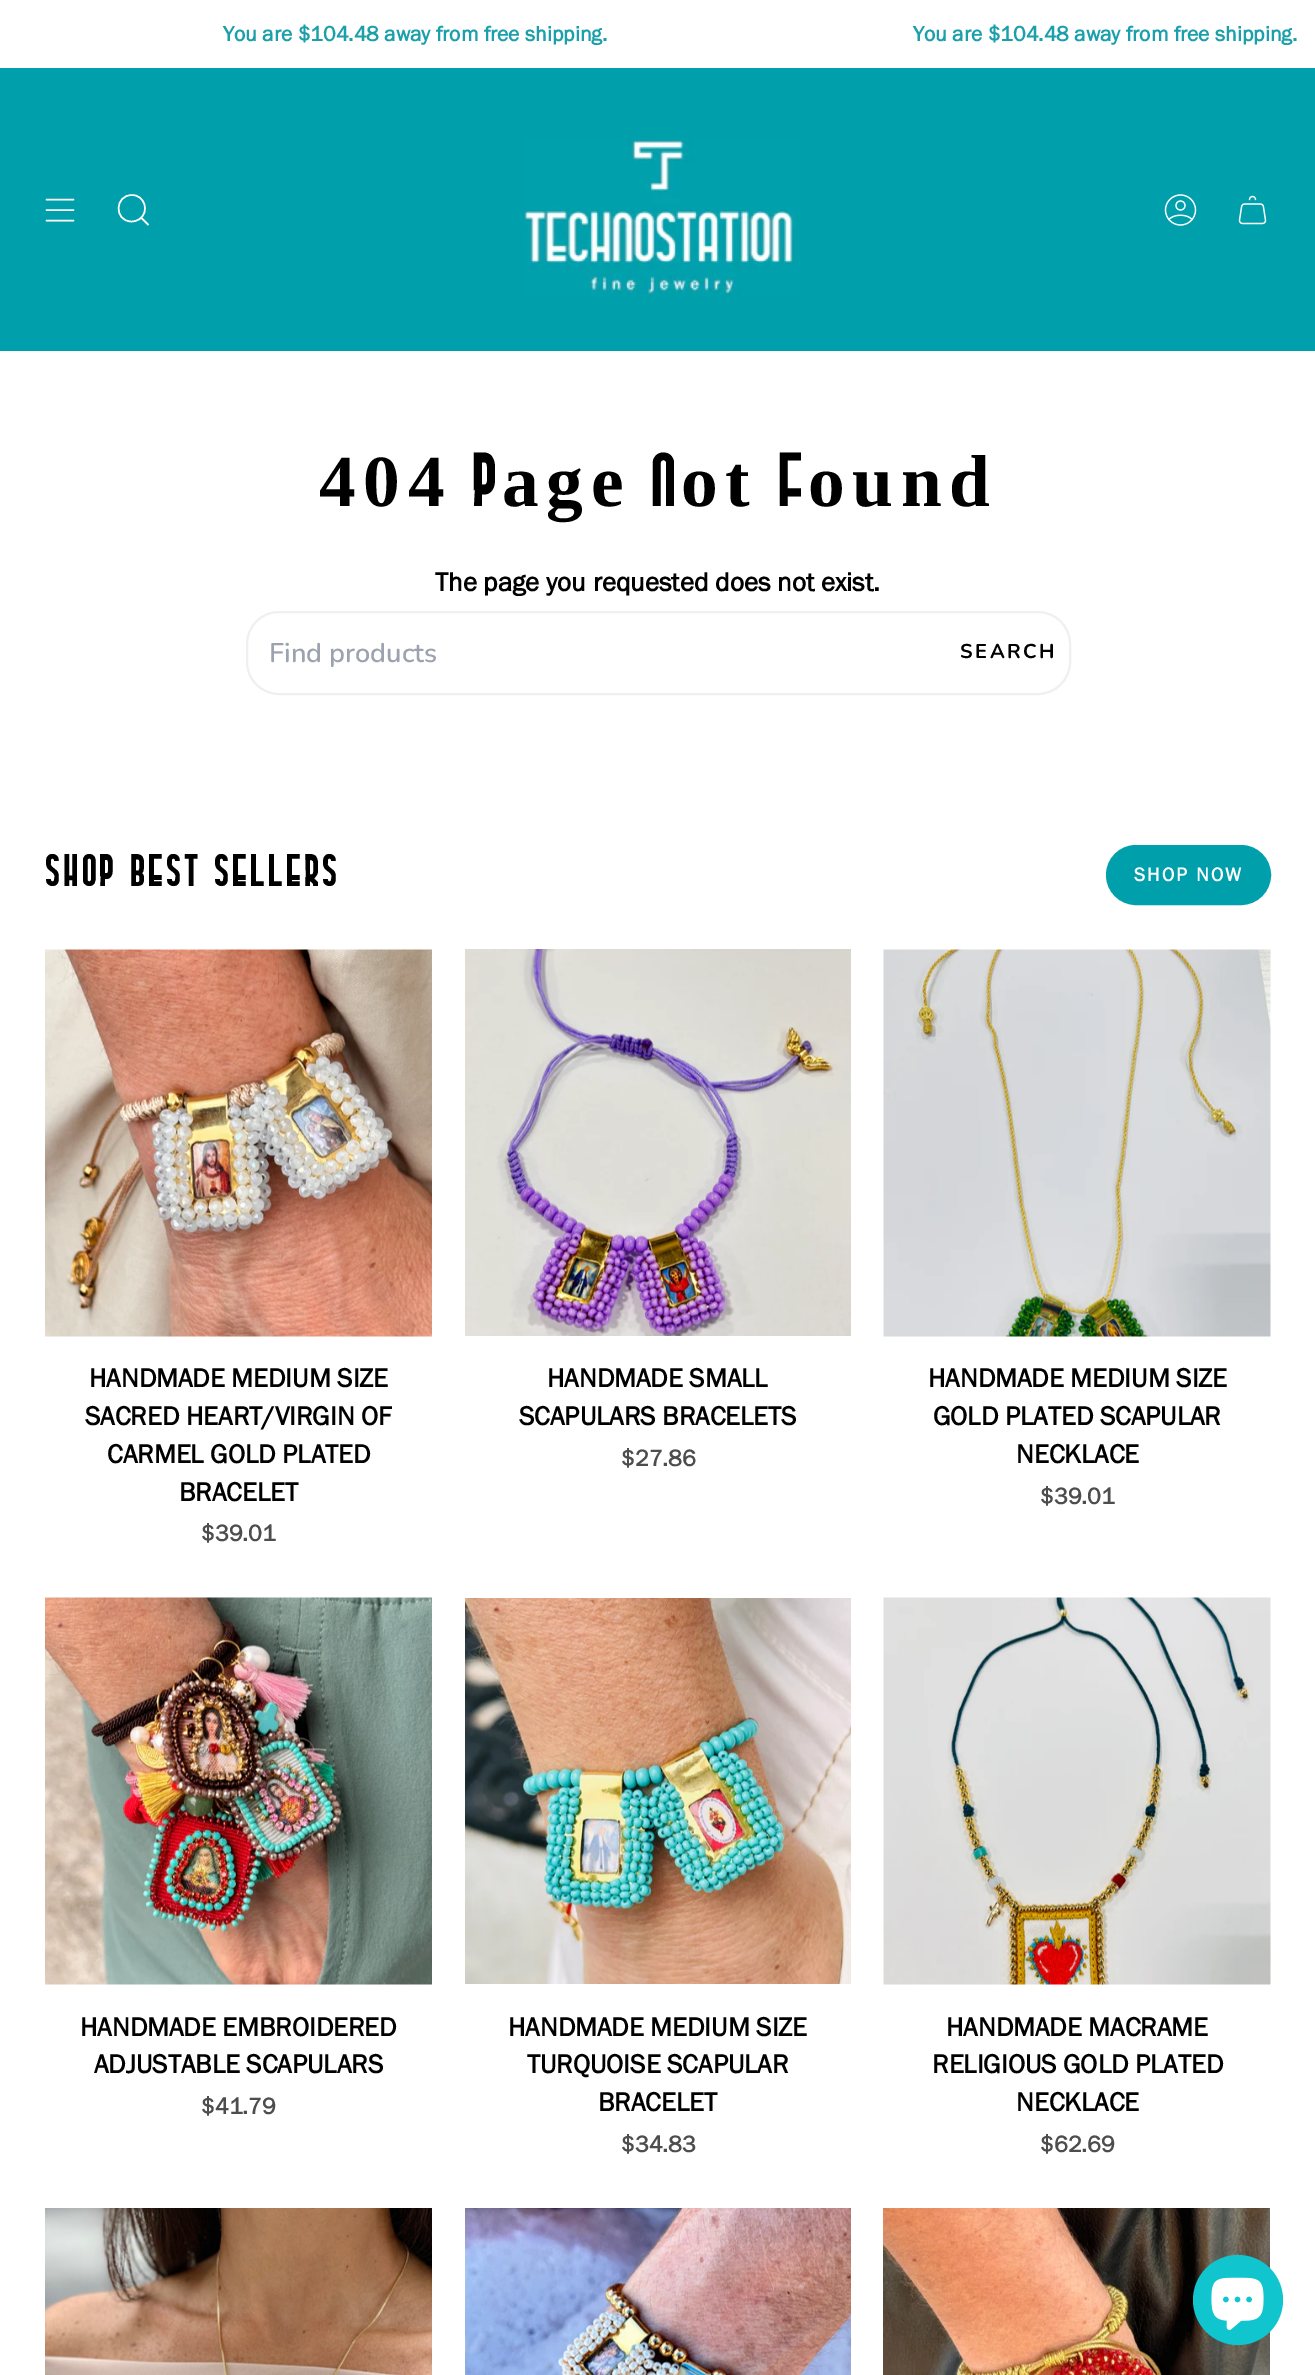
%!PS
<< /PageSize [1315 2375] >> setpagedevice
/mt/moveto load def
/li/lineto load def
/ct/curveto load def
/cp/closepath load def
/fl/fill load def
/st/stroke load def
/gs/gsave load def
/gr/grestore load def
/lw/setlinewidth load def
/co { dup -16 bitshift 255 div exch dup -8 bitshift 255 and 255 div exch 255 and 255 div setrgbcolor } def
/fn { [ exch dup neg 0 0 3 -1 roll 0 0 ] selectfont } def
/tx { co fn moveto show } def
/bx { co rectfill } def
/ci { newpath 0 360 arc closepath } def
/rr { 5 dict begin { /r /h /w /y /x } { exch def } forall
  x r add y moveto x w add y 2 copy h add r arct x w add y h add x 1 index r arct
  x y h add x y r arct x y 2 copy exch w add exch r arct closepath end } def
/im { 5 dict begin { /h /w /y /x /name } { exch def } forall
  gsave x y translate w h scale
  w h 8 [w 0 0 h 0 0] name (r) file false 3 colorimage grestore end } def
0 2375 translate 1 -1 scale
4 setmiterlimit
0 0 1315 2375 16#FFFFFF bx
0 68 1315 283 16#009FAC bx
16#FFFFFF co
1.5 lw
1 setlinecap
1 setlinejoin
46.5 199.5 mt 73.5 199.5 li 46.5 210 mt 73.5 210 li 46.5 220.5 mt 73.5 220.5 li st
0 setlinecap
0 setlinejoin
132 195 mt 144.5 195 150 211.5 139.5 219 ct 137 221 134 221.5 131 221.5 ct 114 221 114.5 195 132 195 ct cp 141 217.5 mt 148.5 225 li st
(media/1.raw) 523 138 276 159 im
(media/2.raw) 1164 194 33 32 im
(media/3.raw) 1238 195 29 30 im
16#F0F0F0 co
2 lw
247 612 823 82 32 rr st
16#009FAC co
1107 846 163 58 29 rr gs fl gr
16#00A0AC co
st
(media/4.raw) 45 949 387 388 im
(media/5.raw) 465 949 386 387 im
(media/6.raw) 883 949 388 388 im
(media/7.raw) 45 1597 387 388 im
(media/8.raw) 465 1598 386 386 im
(media/9.raw) 883 1597 388 388 im
(media/10.raw) 45 2208 387 167 im
(media/11.raw) 465 2208 386 167 im
(media/12.raw) 883 2208 387 167 im
16#10C5CE co
1238 2300 45 ci fl
(media/13.raw) 1211 2277 53 53 im
(You are $104.48 away from free shipping.) 223 41 /FranklinGothic-Bold 21.6 16#1B9FAB tx
(You are $104.48 away from free shipping.) 913 41 /FranklinGothic-Bold 21.6 16#1B9FAB tx
/LiberationSerif-Bold 73.5 fn
16#000000 co
319 506 mt 7.5 0 (404) ashow
/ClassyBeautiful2-Bold 73.5 fn
472 506 mt 7.5 0 (P) ashow
/LiberationSerif-Bold 73.5 fn
502 506 mt 7.5 0 (age) ashow
/ClassyBeautiful2-Bold 73.5 fn
651 506 mt 7.5 0 (N) ashow
/LiberationSerif-Bold 73.5 fn
681 506 mt 7.5 0 (ot) ashow
/ClassyBeautiful2-Bold 73.5 fn
778 506 mt 7.5 0 (F) ashow
/LiberationSerif-Bold 73.5 fn
808 506 mt 7.5 0 (ound) ashow
(The page you requested does not exist.) 435 591 /FranklinGothic-Bold 27 16#000000 tx
(Find products) 269 662 /Nunito-SemiBold 27 16#9CA3AF tx
/Nunito-Bold 20 fn
16#000000 co
960 658 mt 2.5 0 (SEARCH) ashow
/ClassyBeautiful2-Bold 44 fn
45 886 mt 4.4 0 (SHOP BEST SELLERS) ashow
/FranklinGothic-Bold 19.5 fn
16#FFFFFF co
1134 881 mt 2 0 (SHOP NOW) ashow
(HANDMADE MEDIUM SIZE) 89 1387 /FranklinGothic-Bold 27 16#000000 tx
(SACRED HEART/VIRGIN OF) 85 1425 /FranklinGothic-Bold 27 16#000000 tx
(CARMEL GOLD PLATED) 107 1463 /FranklinGothic-Bold 27 16#000000 tx
(BRACELET) 179 1501 /FranklinGothic-Bold 27 16#000000 tx
($39.01) 201 1541 /FranklinGothic-Bold 23.5 16#4D4D4D tx
(HANDMADE SMALL) 547 1387 /FranklinGothic-Bold 27 16#000000 tx
(SCAPULARS BRACELETS) 519 1425 /FranklinGothic-Bold 27 16#000000 tx
($27.86) 621 1466 /FranklinGothic-Bold 23.5 16#4D4D4D tx
(HANDMADE MEDIUM SIZE) 928 1387 /FranklinGothic-Bold 27 16#000000 tx
(GOLD PLATED SCAPULAR) 933 1425 /FranklinGothic-Bold 27 16#000000 tx
(NECKLACE) 1016 1463 /FranklinGothic-Bold 27 16#000000 tx
($39.01) 1040 1504 /FranklinGothic-Bold 23.5 16#4D4D4D tx
(HANDMADE EMBROIDERED) 80 2036 /FranklinGothic-Bold 27 16#000000 tx
(ADJUSTABLE SCAPULARS) 94 2073 /FranklinGothic-Bold 27 16#000000 tx
($41.79) 201 2114 /FranklinGothic-Bold 23.5 16#4D4D4D tx
(HANDMADE MEDIUM SIZE) 508 2036 /FranklinGothic-Bold 27 16#000000 tx
(TURQUOISE SCAPULAR) 527 2073 /FranklinGothic-Bold 27 16#000000 tx
(BRACELET) 598 2111 /FranklinGothic-Bold 27 16#000000 tx
($34.83) 621 2152 /FranklinGothic-Bold 23.5 16#4D4D4D tx
(HANDMADE MACRAME) 946 2036 /FranklinGothic-Bold 27 16#000000 tx
(RELIGIOUS GOLD PLATED) 932 2073 /FranklinGothic-Bold 27 16#000000 tx
(NECKLACE) 1016 2111 /FranklinGothic-Bold 27 16#000000 tx
($62.69) 1040 2152 /FranklinGothic-Bold 23.5 16#4D4D4D tx
showpage
